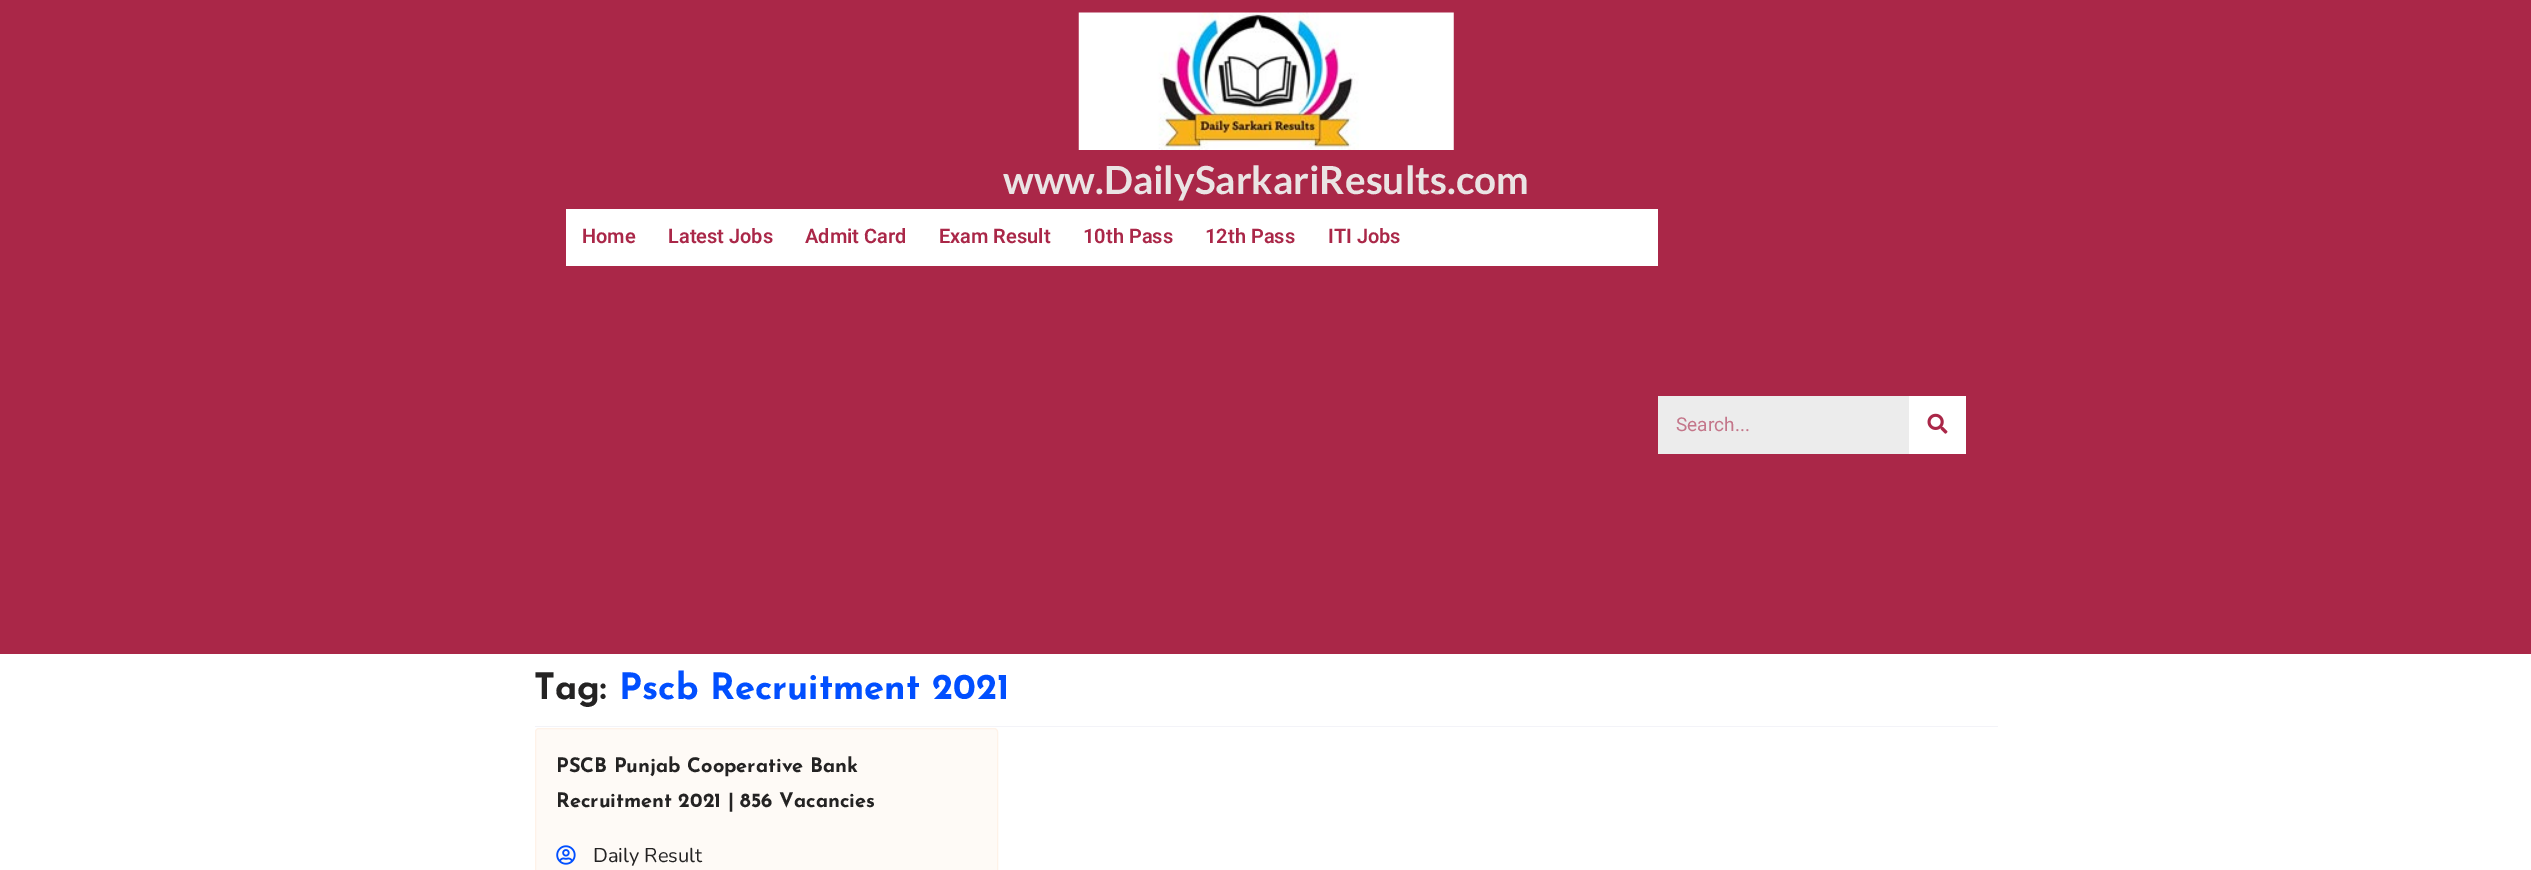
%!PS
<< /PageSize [2531 870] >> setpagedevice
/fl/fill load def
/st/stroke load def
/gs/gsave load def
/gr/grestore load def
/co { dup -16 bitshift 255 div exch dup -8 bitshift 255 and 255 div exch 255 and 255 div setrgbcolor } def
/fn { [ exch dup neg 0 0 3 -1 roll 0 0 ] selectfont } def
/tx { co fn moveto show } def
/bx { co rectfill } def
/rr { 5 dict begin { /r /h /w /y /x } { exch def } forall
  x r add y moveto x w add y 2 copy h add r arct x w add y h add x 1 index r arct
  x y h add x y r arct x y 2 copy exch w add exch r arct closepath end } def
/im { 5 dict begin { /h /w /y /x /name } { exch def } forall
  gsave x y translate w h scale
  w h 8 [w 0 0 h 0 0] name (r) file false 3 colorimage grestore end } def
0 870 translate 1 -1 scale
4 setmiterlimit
0 0 2531 870 16#FFFFFF bx
0 0 2531 654 16#AA2748 bx
(media/1.raw) 1078 12 376 138 im
566 209 1092 57 16#FFFFFF bx
1658 396 251 58 16#ECECEC bx
1909 396 57 58 16#FFFFFF bx
(media/2.raw) 1927 413 21 21 im
535 726 1463 1 16#F3F3F8 bx
16#FEFAF6 co
535.5 728.5 462 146 3.5 rr gs fl gr
16#FEF2E8 co
st
(media/3.raw) 556 845 20 20 im
(www.DailySarkariResults.com) 1003 194 /Lato-Bold 38.75 16#EAE4E4 tx
(Home) 582 243 /Roboto-SemiBold 20 16#AA2748 tx
(Latest Jobs) 668 243 /Roboto-SemiBold 20 16#AA2748 tx
(Admit Card) 805 243 /Roboto-SemiBold 20 16#AA2748 tx
(Exam Result) 939 243 /Roboto-SemiBold 20 16#AA2748 tx
(10th Pass) 1083 243 /Roboto-SemiBold 20 16#AA2748 tx
(12th Pass) 1205 243 /Roboto-SemiBold 20 16#AA2748 tx
(ITI Jobs) 1328 243 /Roboto-SemiBold 20 16#AA2748 tx
(Search...) 1676 431 /Roboto-Regular 19 16#C4768A tx
(Tag:) 534 699 /JosefinSans-Bold 36.25 16#242323 tx
(Pscb Recruitment 2021) 619 699 /JosefinSans-Bold 36.25 16#014FFF tx
(PSCB Punjab Cooperative Bank) 556 772 /JosefinSans-Bold 20 16#242323 tx
(Recruitment 2021 | 856 Vacancies) 556 807 /JosefinSans-Bold 20 16#242323 tx
(Daily Result) 593 862 /Nunito-Regular 20 16#242323 tx
showpage
